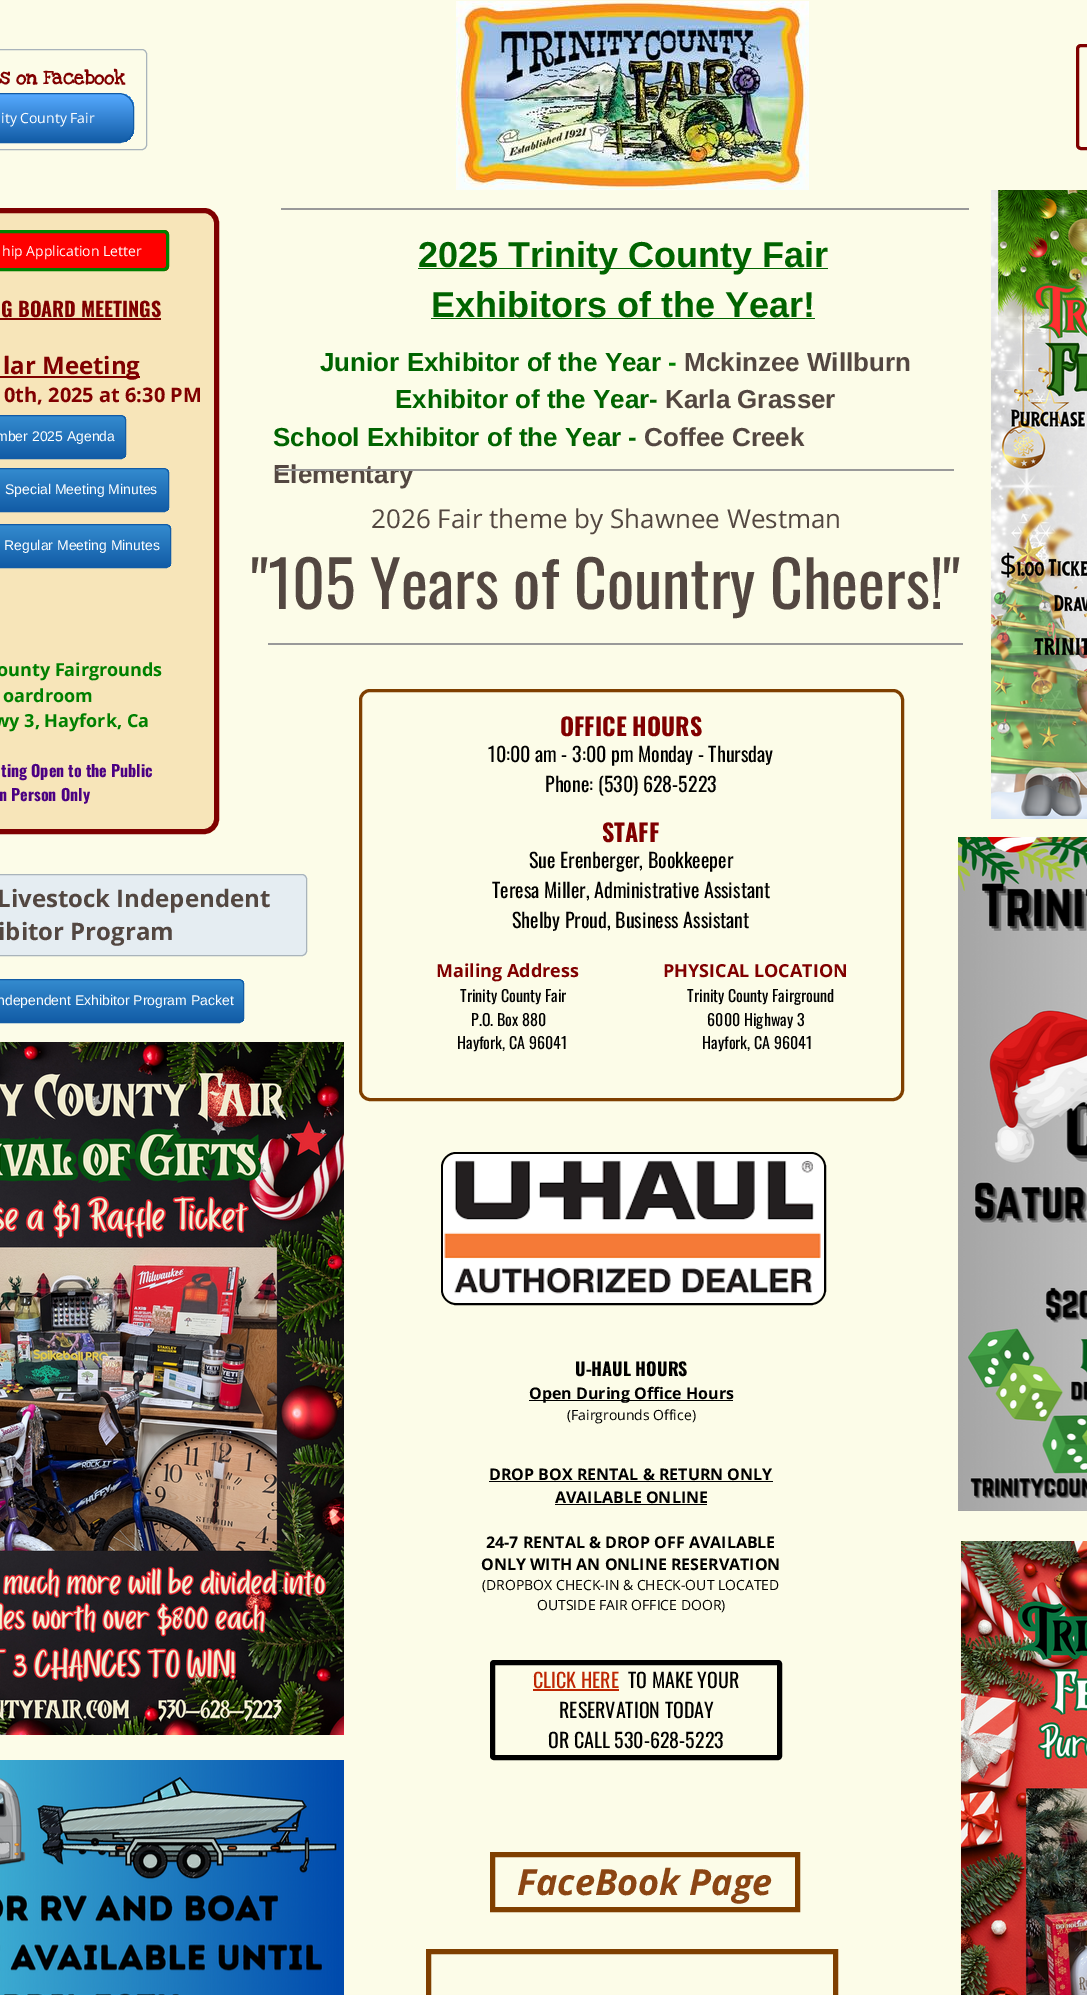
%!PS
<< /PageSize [1087 1995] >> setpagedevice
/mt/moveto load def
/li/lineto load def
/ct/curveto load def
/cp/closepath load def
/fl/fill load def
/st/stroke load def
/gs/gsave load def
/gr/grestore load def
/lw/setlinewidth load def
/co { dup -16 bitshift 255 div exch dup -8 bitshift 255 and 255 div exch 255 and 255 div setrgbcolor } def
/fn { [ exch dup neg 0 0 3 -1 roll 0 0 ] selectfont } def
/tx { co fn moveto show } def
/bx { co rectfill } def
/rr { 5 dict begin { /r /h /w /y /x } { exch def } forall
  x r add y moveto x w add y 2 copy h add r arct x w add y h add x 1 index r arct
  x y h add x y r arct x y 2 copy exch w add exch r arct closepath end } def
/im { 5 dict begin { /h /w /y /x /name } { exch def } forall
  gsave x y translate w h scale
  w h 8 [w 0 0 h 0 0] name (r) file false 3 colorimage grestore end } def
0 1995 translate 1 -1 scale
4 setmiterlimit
0 0 1087 1995 16#FCFCE8 bx
16#A9B4BB co
-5.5 49.5 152 100 4.5 rr st
(media/1.raw) 456 1 353 189 im
16#7F0000 co
3 lw
1077.5 45.5 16 103 3.5 rr st
gs
-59 93 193 50 15 rr clip newpath
gs 0 94 mt 134 94 li 134 142 li 0 142 li cp clip newpath
<< /ShadingType 2 /ColorSpace /DeviceRGB /Coords [38 94 38 142] /Extend [true true] /Function << /FunctionType 2 /Domain [0 1] /C0 [.337 .667 1] /C1 [.071 .361 .651] /N 1 >> >> shfill gr
gr
16#125CA6 co
1 lw
-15.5 93.5 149 49 14.5 rr st
16#F7E5B9 co
0 208 mt 204 208 li 212.5 208 219 214.5 219 223 ct 219 819 li 219 827.5 212.5 834 204 834 ct 0 834 li cp fl
16#7F0000 co
5 lw
-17.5 210.5 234 621 12.5 rr st
281 208 688 2 16#999999 bx
(media/2.raw) 991 190 96 629 im
16#FF0000 co
0 230 mt 164 230 li 167 230 169 232 169 235 ct 169 266 li 169 269 167 271 164 271 ct 0 271 li cp fl
16#007F00 co
3 lw
-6.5 231.5 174 38 3.5 rr st
418 268 410 1 16#006400 bx
431 318 384 1 16#006400 bx
0 318 161 2 16#800000 bx
0 376 140 2 16#800000 bx
gs
-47 415 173 44 5 rr clip newpath
gs 0 416 mt 126 416 li 126 458 li 0 458 li cp clip newpath
<< /ShadingType 2 /ColorSpace /DeviceRGB /Coords [40 416 40 458] /Extend [true true] /Function << /FunctionType 2 /Domain [0 1] /C0 [.204 .545 .812] /C1 [.071 .361 .651] /N 1 >> >> shfill gr
gr
16#125CA6 co
1 lw
-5.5 415.5 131 43 4.5 rr st
gs
-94 468 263 44 5 rr clip newpath
gs 0 469 mt 169 469 li 169 511 li 0 511 li cp clip newpath
<< /ShadingType 2 /ColorSpace /DeviceRGB /Coords [38 469 38 511] /Extend [true true] /Function << /FunctionType 2 /Domain [0 1] /C0 [.204 .545 .812] /C1 [.071 .361 .651] /N 1 >> >> shfill gr
gr
-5.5 468.5 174 43 4.5 rr st
gs
-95 524 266 44 5 rr clip newpath
gs 0 525 mt 171 525 li 171 567 li 0 567 li cp clip newpath
<< /ShadingType 2 /ColorSpace /DeviceRGB /Coords [38 525 38 567] /Extend [true true] /Function << /FunctionType 2 /Domain [0 1] /C0 [.204 .545 .812] /C1 [.071 .361 .651] /N 1 >> >> shfill gr
gr
-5.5 524.5 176 43 4.5 rr st
268 643 695 2 16#999999 bx
16#E5EDF2 co
0 874 mt 302 874 li 305 874 307 876 307 879 ct 307 951 li 307 954 305 956 302 956 ct 0 956 li cp fl
16#A9B4BB co
-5.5 874.5 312 81 4.5 rr st
16#7F3F00 co
3 lw
360.5 690.5 542 409 9.5 rr st
(media/3.raw) 958 837 129 674 im
gs
-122 979 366 44 5 rr clip newpath
gs 0 980 mt 244 980 li 244 1022 li 0 1022 li cp clip newpath
<< /ShadingType 2 /ColorSpace /DeviceRGB /Coords [61 980 61 1022] /Extend [true true] /Function << /FunctionType 2 /Domain [0 1] /C0 [.204 .545 .812] /C1 [.071 .361 .651] /N 1 >> >> shfill gr
gr
16#125CA6 co
1 lw
-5.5 979.5 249 43 4.5 rr st
(media/4.raw) 0 1042 344 693 im
16#000000 co
2 lw
442 1153 383 151 14 rr st
(media/5.raw) 443 1154 381 149 im
529 1400 204 1 16#000000 bx
489 1481 284 1 16#000000 bx
555 1504 152 1 16#000000 bx
5 lw
492.5 1662.5 287 95 1.5 rr st
533 1689 86 2 16#BE2602 bx
(media/6.raw) 961 1541 126 454 im
(media/7.raw) 0 1760 344 235 im
16#7F3F00 co
492.5 1854.5 305 55 rectstroke
428.5 1951.5 407 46 rectstroke
(s on Facebook) -1 84 /LoveYaLikeASister-Bold 20 16#800000 tx
(ity County Fair) 1 123 /OpenSans-Regular 14 16#FFFFFF tx
(hip Application Letter) 2 256 /OpenSans-Regular 14 16#FFFFFF tx
(2025 Trinity County Fair) 418 267 /LiberationSans-Bold 36 16#006400 tx
(Exhibitors of the Year!) 431 317 /LiberationSans-Bold 36 16#006400 tx
(G BOARD MEETINGS) 1 317 /Oswald-Bold 20 16#800000 tx
(lar Meeting) 3 374 /OpenSans-Bold 24 16#800000 tx
(0th, 2025 at 6:30 PM) 4 402 /OpenSans-Bold 20 16#800000 tx
(ounty Fairgrounds) -3 676 /OpenSans-Bold 18 16#008000 tx
(oardroom) 3 702 /OpenSans-Bold 18 16#008000 tx
(wy 3, Hayfork, Ca) -6 727 /OpenSans-Bold 18 16#008000 tx
(ting Open to the Public) 1 777 /Oswald-Bold 16 16#4B0082 tx
(n Person Only) -1 801 /Oswald-Bold 16 16#4B0082 tx
(Junior Exhibitor of the Year) 320 371 /LiberationSans-Bold 26 16#006400 tx
(-) 668 371 /LiberationSans-Bold 26 16#008000 tx
(Mckinzee Willburn) 684 371 /LiberationSans-Bold 26 16#534741 tx
(Exhibitor of the Year-) 395 408 /LiberationSans-Bold 26 16#006400 tx
(Karla Grasser) 665 408 /LiberationSans-Bold 26 16#534741 tx
(School Exhibitor of the Year -) 273 446 /LiberationSans-Bold 26 16#006400 tx
(Coffee Creek) 644 446 /LiberationSans-Bold 26 16#534741 tx
(Elementary) 273 483 /LiberationSans-Bold 26 16#534741 tx
(mber 2025 Agenda) -4 441 /LiberationSans-Regular 14 16#FFFFFF tx
276 469 678 2 16#999999 bx
(Special Meeting Minutes) 5 494 /LiberationSans-Regular 14 16#FFFFFF tx
(Regular Meeting Minutes) 4 550 /LiberationSans-Regular 14 16#FFFFFF tx
(2026 Fair theme by Shawnee Westman) 371 528 /OpenSans-Regular 26 16#534741 tx
("105 Years of Country Cheers!") 251 609 /Oswald-Regular 64 16#534741 tx
(OFFICE HOURS) 560 736 /Oswald-Bold 24 16#800000 tx
(10:00 am - 3:00 pm Monday - Thursday) 488 762 /Oswald-Regular 20 16#000000 tx
(Phone: \(530\) 628-5223) 545 792 /Oswald-Regular 20 16#000000 tx
(STAFF) 602 842 /Oswald-Bold 24 16#800000 tx
(Sue Erenberger, Bookkeeper) 529 868 /Oswald-Regular 20 16#000000 tx
(Teresa Miller, Administrative Assistant) 492 898 /Oswald-Regular 20 16#000000 tx
(Shelby Proud, Business Assistant) 512 928 /Oswald-Regular 20 16#000000 tx
(Mailing Address) 436 977 /OpenSans-Bold 18 16#800000 tx
(PHYSICAL LOCATION) 663 977 /OpenSans-Bold 18 16#800000 tx
(Trinity County Fair                                 Trinity County Fairground) 460 1002 /Oswald-Regular 16 16#000000 tx
(P.O. Box 880                                            6000 Highway 3) 471 1026 /Oswald-Regular 16 16#000000 tx
(Hayfork, CA 96041                                     Hayfork, CA 96041) 457 1049 /Oswald-Regular 16 16#000000 tx
(Livestock Independent) -3 907 /OpenSans-Bold 24 16#534741 tx
(ibitor Program) -2 940 /OpenSans-Bold 24 16#534741 tx
(ndependent Exhibitor Program Packet) -3 1005 /LiberationSans-Regular 14 16#FFFFFF tx
(U-HAUL HOURS) 575 1376 /Oswald-Bold 18 16#000000 tx
(Open During Office Hours) 529 1399 /OpenSans-Bold 16 16#000000 tx
(\(Fairgrounds Office\)) 567 1420 /OpenSans-Regular 14 16#000000 tx
(DROP BOX RENTAL & RETURN ONLY) 489 1480 /OpenSans-Bold 16 16#000000 tx
(AVAILABLE ONLINE) 555 1503 /OpenSans-Bold 16 16#000000 tx
(24-7 RENTAL & DROP OFF AVAILABLE) 486 1548 /OpenSans-Bold 16 16#000000 tx
(ONLY WITH AN ONLINE RESERVATION) 481 1570 /OpenSans-Bold 16 16#000000 tx
(\(DROPBOX CHECK-IN & CHECK-OUT LOCATED) 482 1590 /OpenSans-Regular 14 16#000000 tx
(OUTSIDE FAIR OFFICE DOOR\)) 537 1610 /OpenSans-Regular 14 16#000000 tx
(CLICK HERE) 533 1688 /Oswald-Regular 20 16#BE2602 tx
(TO MAKE YOUR) 628 1688 /Oswald-Regular 20 16#000000 tx
(RESERVATION TODAY) 559 1718 /Oswald-Regular 20 16#000000 tx
(OR CALL 530-628-5223) 548 1748 /Oswald-Regular 20 16#000000 tx
(FaceBook Page) 517 1895 /OpenSans-BoldItalic 36 16#8B4513 tx
showpage
